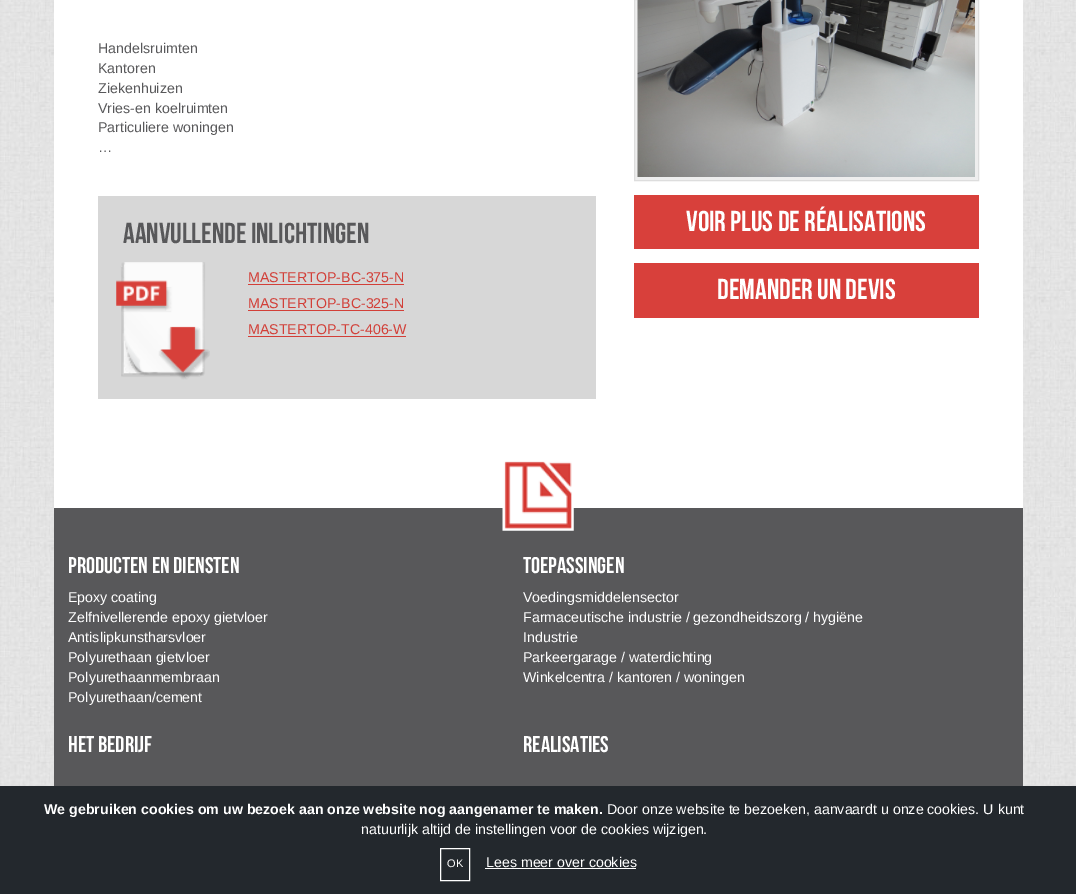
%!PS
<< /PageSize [1076 894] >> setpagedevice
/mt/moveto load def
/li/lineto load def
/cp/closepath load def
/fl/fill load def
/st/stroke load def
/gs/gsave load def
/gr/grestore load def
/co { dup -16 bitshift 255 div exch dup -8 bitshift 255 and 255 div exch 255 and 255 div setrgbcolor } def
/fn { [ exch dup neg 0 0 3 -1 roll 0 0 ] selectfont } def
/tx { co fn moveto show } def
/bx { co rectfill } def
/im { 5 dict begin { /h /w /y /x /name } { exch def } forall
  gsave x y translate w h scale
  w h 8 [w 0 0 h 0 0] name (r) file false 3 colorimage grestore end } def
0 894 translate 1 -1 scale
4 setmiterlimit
0 0 1076 894 16#FFFFFF bx
(media/1.raw) 0 0 1076 786 im
54 0 969 508 16#FFFFFF bx
98 196 498 203 16#D7D7D7 bx
(media/2.raw) 116 262 94 118 im
248 284 156 1 16#D23F38 bx
248 310 156 1 16#D23F38 bx
248 336 158 1 16#D23F38 bx
16#EEEEEE co
634.5 -.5 mt 978.5 -.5 li 978.5 180.5 li 634.5 180.5 li cp gs fl gr
16#DDDDDD co
st
(media/3.raw) 637 0 338 177 im
634 195 345 54 16#D8403B bx
634 263 345 55 16#D8403B bx
54 508 969 278 16#58585A bx
(media/4.raw) 502 461 72 70 im
0 786 1076 108 16#23282D bx
16#FFFFFF co
440.5 848.5 29 32 rectstroke
485 868 151 1 16#FFFFFF bx
(Handelsruimten) 98 53 /LiberationSans-Regular 14.2 16#58585A tx
(Kantoren) 98 73 /LiberationSans-Regular 14.2 16#58585A tx
(Ziekenhuizen) 98 93 /LiberationSans-Regular 14.2 16#58585A tx
(Vries-en koelruimten) 98 113 /LiberationSans-Regular 14.2 16#58585A tx
(Particuliere woningen) 98 132 /LiberationSans-Regular 14.2 16#58585A tx
(…) 98 152 /LiberationSans-Regular 14.2 16#58585A tx
(Aanvullende inlichtingen) 123 243 /BebasNeue-Regular 28.75 16#58585A tx
(MASTERTOP-BC-375-N) 248 282 /LiberationSans-Regular 14.2 16#D23F38 tx
(MASTERTOP-BC-325-N) 248 308 /LiberationSans-Regular 14.2 16#D23F38 tx
(MASTERTOP-TC-406-W) 248 334 /LiberationSans-Regular 14.2 16#D23F38 tx
(VOIR PLUS DE RÉALISATIONS) 686 231 /BebasNeue-Regular 28.75 16#FFFFFF tx
(DEMANDER UN DEVIS) 717 299 /BebasNeue-Regular 28.75 16#FFFFFF tx
(Producten en diensten) 68 573 /BebasNeue-Regular 22.75 16#FFFFFF tx
(Epoxy coating) 68 602 /LiberationSans-Regular 14.2 16#FFFFFF tx
(Zelfnivellerende epoxy gietvloer) 68 622 /LiberationSans-Regular 14.2 16#FFFFFF tx
(Antislipkunstharsvloer) 68 642 /LiberationSans-Regular 14.2 16#FFFFFF tx
(Polyurethaan gietvloer) 68 662 /LiberationSans-Regular 14.2 16#FFFFFF tx
(Polyurethaanmembraan) 68 682 /LiberationSans-Regular 14.2 16#FFFFFF tx
(Polyurethaan/cement) 68 702 /LiberationSans-Regular 14.2 16#FFFFFF tx
(Toepassingen) 523 573 /BebasNeue-Regular 22.75 16#FFFFFF tx
(Voedingsmiddelensector) 523 602 /LiberationSans-Regular 14.2 16#FFFFFF tx
(Farmaceutische industrie / gezondheidszorg / hygiëne) 523 622 /LiberationSans-Regular 14.2 16#FFFFFF tx
(Industrie) 523 642 /LiberationSans-Regular 14.2 16#FFFFFF tx
(Parkeergarage / waterdichting) 523 662 /LiberationSans-Regular 14.2 16#FFFFFF tx
(Winkelcentra / kantoren / woningen) 523 682 /LiberationSans-Regular 14.2 16#FFFFFF tx
(Het bedrijf) 68 752 /BebasNeue-Regular 22.75 16#FFFFFF tx
(Realisaties) 523 752 /BebasNeue-Regular 22.75 16#FFFFFF tx
(We gebruiken cookies om uw bezoek aan onze website nog aangenamer te maken.) 44 814 /LiberationSans-Bold 14.2 16#FFFFFF tx
(Door onze website te bezoeken, aanvaardt u onze cookies. U kunt) 607 814 /LiberationSans-Regular 14.2 16#FFFFFF tx
(natuurlijk altijd de instellingen voor de cookies wijzigen.) 361 834 /LiberationSans-Regular 14.2 16#FFFFFF tx
(OK) 447 867 /LiberationSans-Regular 11 16#FFFFFF tx
(Lees meer over cookies) 486 867 /LiberationSans-Regular 14.2 16#FFFFFF tx
showpage
